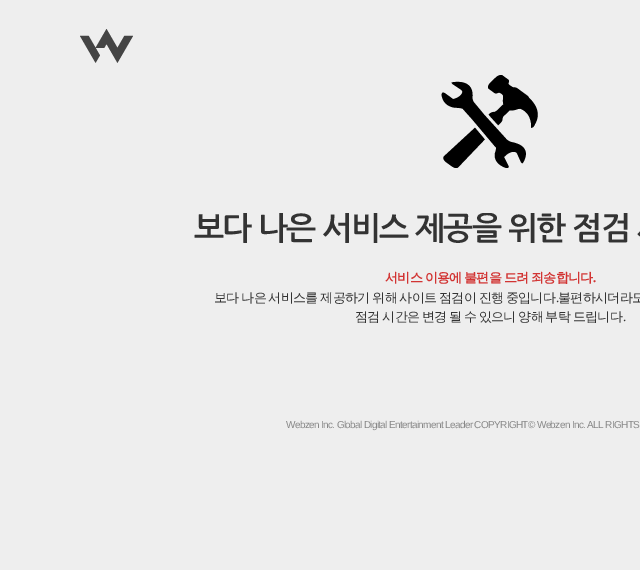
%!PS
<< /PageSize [640 570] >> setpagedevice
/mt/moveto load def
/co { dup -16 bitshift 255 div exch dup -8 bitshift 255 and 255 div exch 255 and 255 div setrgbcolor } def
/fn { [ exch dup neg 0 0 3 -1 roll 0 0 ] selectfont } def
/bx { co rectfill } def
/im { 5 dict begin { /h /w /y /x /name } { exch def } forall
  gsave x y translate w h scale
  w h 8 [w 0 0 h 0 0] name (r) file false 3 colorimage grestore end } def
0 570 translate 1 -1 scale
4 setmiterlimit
0 0 640 570 16#EEEEEE bx
(media/1.raw) 80 29 53 34 im
(media/2.raw) 441 75 97 93 im
(media/3.raw) 194 213 446 30 im
/WenQuanYiZenHei-Bold 13 fn
16#D23433 co
385 282 mt -.75 0 32 -.65 0 (서비스 이용에 불편을 드려 죄송합니다) awidthshow
/LiberationSerif-Bold 13 fn
593 282 mt -.65 0 (.) ashow
/WenQuanYiZenHei-Medium 13 fn
16#333333 co
214 302 mt -.75 0 32 -.65 0 (보다 나은 서비스를 제공하기 위해 사이트 점검이 진행 중입니다) awidthshow
/LiberationSerif-Regular 13 fn
556 302 mt -.65 0 (.) ashow
/WenQuanYiZenHei-Medium 13 fn
558 302 mt -.75 0 32 -.65 0 (불편하시더라도) awidthshow
355 321 mt -.75 0 32 -.65 0 (점검 시간은 변경 될 수 있으니 양해 부탁 드립니다) awidthshow
/LiberationSerif-Regular 13 fn
623 321 mt -.65 0 (.) ashow
/LiberationSans-Regular 10 fn
16#888888 co
286 428 mt -.65 0 (Webzen Inc. Global Digital Entertainment Leader COPYRIGHT© Webzen Inc. ALL RIGHTS) ashow
showpage
